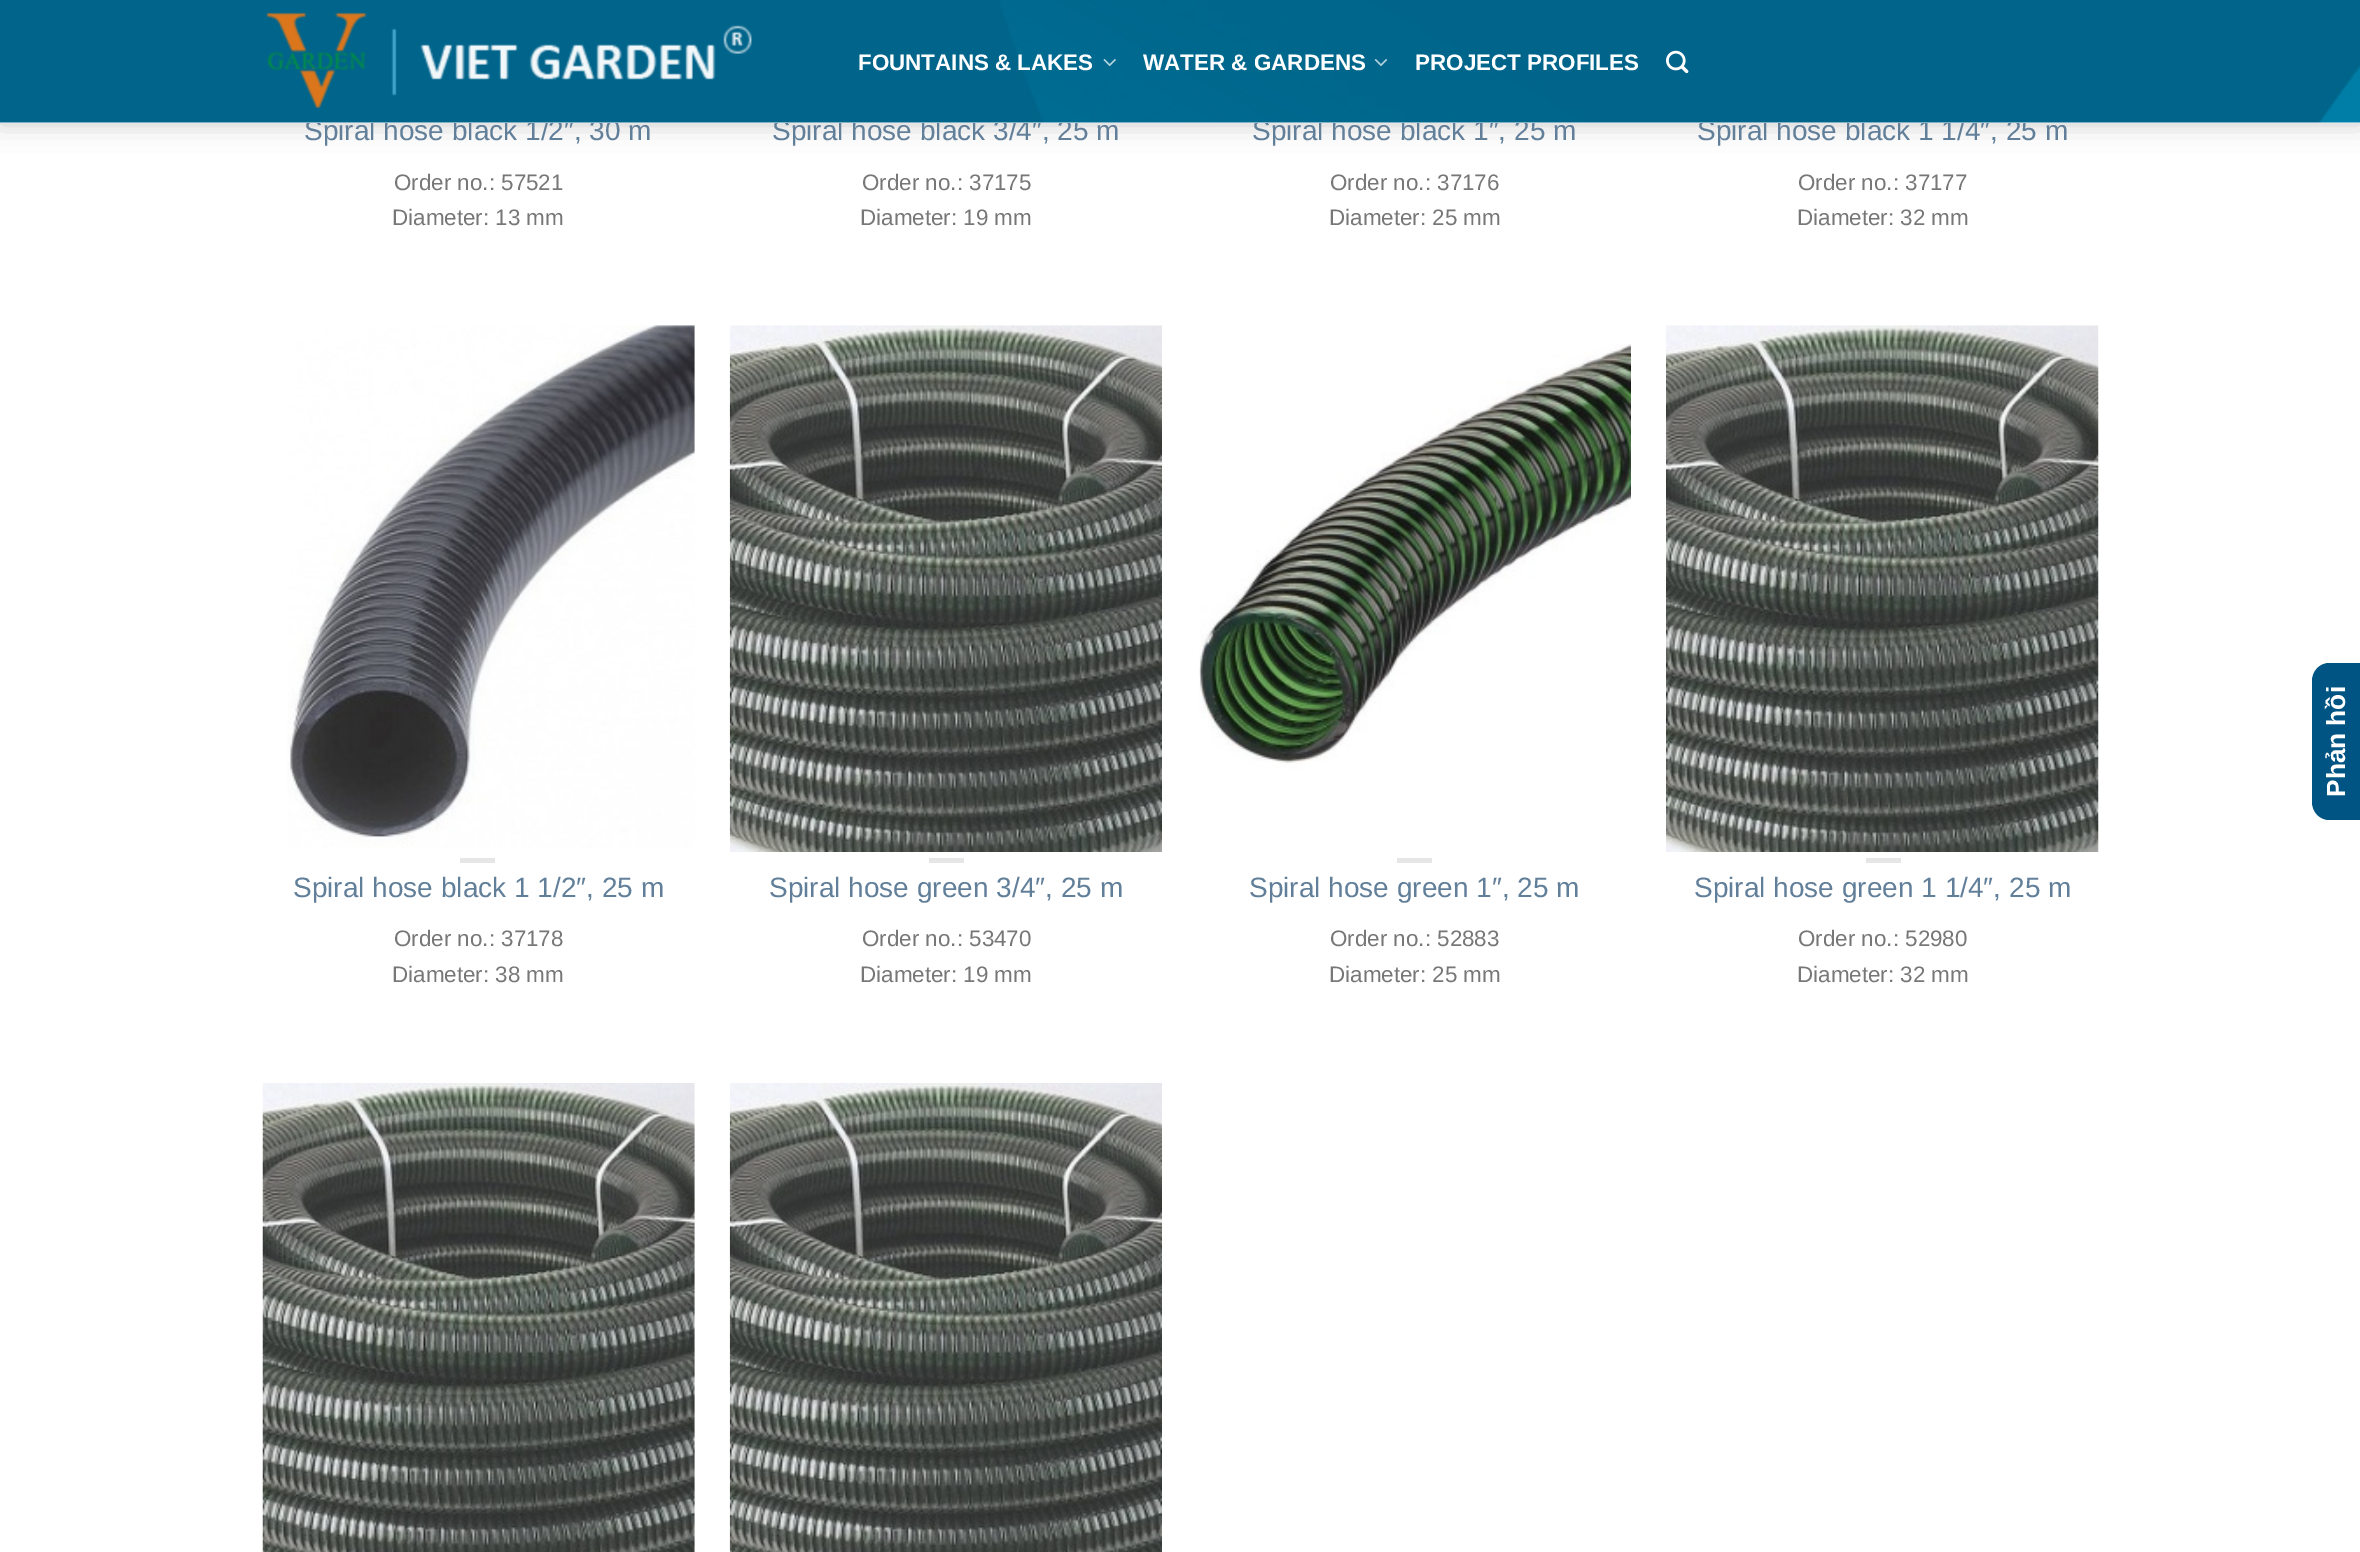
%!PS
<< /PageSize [2360 1552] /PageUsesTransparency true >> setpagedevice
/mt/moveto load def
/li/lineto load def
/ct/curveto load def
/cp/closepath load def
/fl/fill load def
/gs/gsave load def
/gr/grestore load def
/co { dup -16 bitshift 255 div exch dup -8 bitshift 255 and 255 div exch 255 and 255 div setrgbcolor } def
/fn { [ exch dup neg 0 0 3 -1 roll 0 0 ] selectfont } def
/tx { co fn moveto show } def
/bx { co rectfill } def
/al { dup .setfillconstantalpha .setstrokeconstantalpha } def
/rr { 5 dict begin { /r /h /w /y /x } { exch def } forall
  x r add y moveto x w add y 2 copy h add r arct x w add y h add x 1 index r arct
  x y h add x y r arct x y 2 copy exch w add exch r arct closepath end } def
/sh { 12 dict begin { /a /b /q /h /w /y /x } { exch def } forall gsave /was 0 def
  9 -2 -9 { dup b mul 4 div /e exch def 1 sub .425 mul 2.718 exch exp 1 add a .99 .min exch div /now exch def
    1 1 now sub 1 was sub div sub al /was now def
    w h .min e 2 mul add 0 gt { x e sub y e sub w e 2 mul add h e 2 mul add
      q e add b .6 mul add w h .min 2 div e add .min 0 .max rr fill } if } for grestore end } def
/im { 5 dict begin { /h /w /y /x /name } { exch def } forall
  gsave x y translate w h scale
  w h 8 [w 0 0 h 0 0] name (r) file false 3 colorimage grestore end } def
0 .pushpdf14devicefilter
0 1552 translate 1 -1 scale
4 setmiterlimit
0 0 2360 1552 16#FFFFFF bx
16#000000 co
0 2 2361 122 0 13 .2 sh
(media/6.raw) 287 325 408 523 im
460 858 35 5 16#E6E6E6 bx
(media/7.raw) 729 325 433 527 im
929 858 35 5 16#E6E6E6 bx
(media/8.raw) 1199 344 432 425 im
1397 858 35 5 16#E6E6E6 bx
(media/9.raw) 1666 325 433 527 im
1866 858 35 5 16#E6E6E6 bx
(media/10.raw) 262 1083 433 469 im
(media/11.raw) 729 1083 433 469 im
16#005483 co
2312 802 mt 2312 681 li 2312 671 2320 663 2329 663 ct 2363 663 li 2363 820 li 2329 820 li 2320 820 2312 812 2312 802 ct cp fl
(Spiral hose black 1/2″, 30 m) 304 140 /LiberationSans-Regular 28 16#627F9A tx
(Order no.: 57521) 394 190 /LiberationSans-Regular 22.4 16#777777 tx
(Diameter: 13 mm) 392 225 /LiberationSans-Regular 22.4 16#777777 tx
(Spiral hose black 3/4″, 25 m) 772 140 /LiberationSans-Regular 28 16#627F9A tx
(Order no.: 37175) 862 190 /LiberationSans-Regular 22.4 16#777777 tx
(Diameter: 19 mm) 860 225 /LiberationSans-Regular 22.4 16#777777 tx
(Spiral hose black 1″, 25 m) 1252 140 /LiberationSans-Regular 28 16#627F9A tx
(Order no.: 37176) 1330 190 /LiberationSans-Regular 22.4 16#777777 tx
(Diameter: 25 mm) 1329 225 /LiberationSans-Regular 22.4 16#777777 tx
(Spiral hose black 1 1/4″, 25 m) 1697 140 /LiberationSans-Regular 28 16#627F9A tx
0 122 2360 1 16#FFFFFF bx
(media/1.raw) 0 0 2360 123 im
(media/5.raw) 1666 50 23 24 im
(media/4.raw) 1374 59 14 8 im
(media/3.raw) 1103 59 13 8 im
(media/2.raw) 266 12 486 96 im
(PROJECT PROFILES) 1415 70 /LiberationSans-Bold 22.4 16#FFFFFF tx
(WATER & GARDENS) 1143 70 /LiberationSans-Bold 22.4 16#FFFFFF tx
(FOUNTAINS & LAKES) 858 70 /LiberationSans-Bold 22.4 16#FFFFFF tx
(Order no.: 37177) 1798 190 /LiberationSans-Regular 22.4 16#777777 tx
(Diameter: 32 mm) 1797 225 /LiberationSans-Regular 22.4 16#777777 tx
(Spiral hose black 1 1/2″, 25 m) 293 897 /LiberationSans-Regular 28 16#627F9A tx
(Order no.: 37178) 394 946 /LiberationSans-Regular 22.4 16#777777 tx
(Diameter: 38 mm) 392 982 /LiberationSans-Regular 22.4 16#777777 tx
(Spiral hose green 3/4″, 25 m) 769 897 /LiberationSans-Regular 28 16#627F9A tx
(Order no.: 53470) 862 946 /LiberationSans-Regular 22.4 16#777777 tx
(Diameter: 19 mm) 860 982 /LiberationSans-Regular 22.4 16#777777 tx
(Spiral hose green 1″, 25 m) 1249 897 /LiberationSans-Regular 28 16#627F9A tx
(Order no.: 52883) 1330 946 /LiberationSans-Regular 22.4 16#777777 tx
(Diameter: 25 mm) 1329 982 /LiberationSans-Regular 22.4 16#777777 tx
(Spiral hose green 1 1/4″, 25 m) 1694 897 /LiberationSans-Regular 28 16#627F9A tx
(Order no.: 52980) 1798 946 /LiberationSans-Regular 22.4 16#777777 tx
(Diameter: 32 mm) 1797 982 /LiberationSans-Regular 22.4 16#777777 tx
/LiberationSans-Bold 26.25 fn
16#FFFFFF co
gs 2345 797 translate -90 rotate 0 0 mt (Phản hồi) show gr
.poppdf14devicefilter showpage
